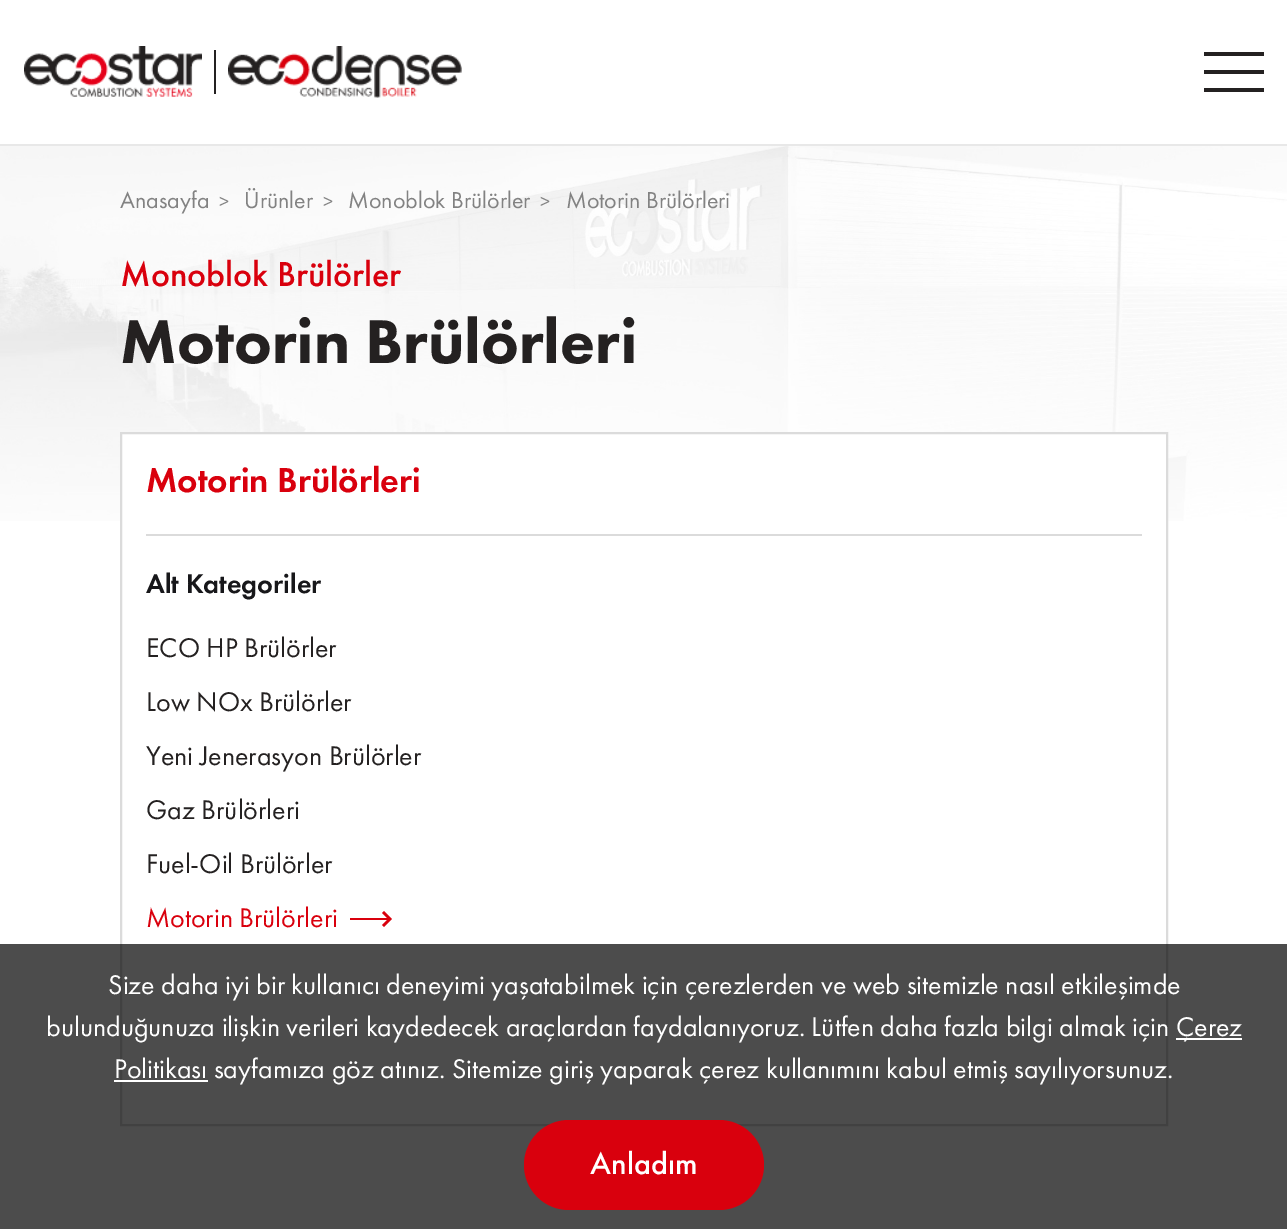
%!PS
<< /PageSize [1287 1229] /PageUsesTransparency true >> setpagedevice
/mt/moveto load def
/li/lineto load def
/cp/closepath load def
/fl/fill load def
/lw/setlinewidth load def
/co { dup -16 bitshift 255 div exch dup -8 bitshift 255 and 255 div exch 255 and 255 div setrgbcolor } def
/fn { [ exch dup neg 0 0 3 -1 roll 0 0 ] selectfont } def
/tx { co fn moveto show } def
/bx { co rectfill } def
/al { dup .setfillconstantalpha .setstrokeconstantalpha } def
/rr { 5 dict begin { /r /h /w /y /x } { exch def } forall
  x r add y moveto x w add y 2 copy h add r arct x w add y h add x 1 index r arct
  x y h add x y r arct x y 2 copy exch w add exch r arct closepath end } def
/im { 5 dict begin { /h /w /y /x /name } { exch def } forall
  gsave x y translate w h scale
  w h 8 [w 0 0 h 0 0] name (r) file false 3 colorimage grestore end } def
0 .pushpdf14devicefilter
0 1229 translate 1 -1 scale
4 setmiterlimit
0 0 1287 1229 16#FFFFFF bx
0 144 1287 2 16#E8E8E8 bx
(media/1.raw) 24 46 178 51 im
214 50 2 44 16#242121 bx
(media/2.raw) 228 46 234 52 im
1204 52 60 4 16#242121 bx
1204 70 60 4 16#242121 bx
1204 88 60 4 16#242121 bx
(media/3.raw) 0 146 1287 375 im
122 434 1044 87 16#FFFFFF bx
16#DBDBDB co
2 lw
121 433 1046 692 rectstroke
146 534 996 2 16#DBDBDB bx
16#D9000D co
350 918 mt 387 918 li 382 913 li 384 911 li 392 919 li 384 927 li 382 925 li 387 920 li 350 920 li cp fl
0.7 al
0 944 1287 285 16#000000 bx
1 al
1176 1038 66 2 16#FFFFFF bx
114 1080 94 2 16#FFFFFF bx
16#D9000D co
524 1120 240 90 45 rr fl
(Anasayfa) 120 208 /FuturaPT-Regular 24 16#828282 tx
(>) 219 208 /FuturaPT-Regular 20 16#828282 tx
(Ürünler) 244 208 /FuturaPT-Regular 24 16#828282 tx
(>) 323 208 /FuturaPT-Regular 20 16#828282 tx
(Monoblok Brülörler) 348 208 /FuturaPT-Regular 24 16#828282 tx
(>) 540 208 /FuturaPT-Regular 20 16#828282 tx
(Motorin Brülörleri) 566 208 /FuturaPT-Regular 24 16#828282 tx
(Monoblok Brülörler) 120 286 /FuturaPT-Medium 36 16#D9000D tx
(Motorin Brülörleri) 120 363 /FuturaPT-Black 64 16#242121 tx
(Motorin Brülörleri) 146 492 /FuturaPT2-Medium 36 16#D9000D tx
(Alt Kategoriler) 146 593 /FuturaPT2-Medium 28 16#17171A tx
(ECO HP Brülörler) 146 657 /FuturaPT-Regular 28 16#242121 tx
(Low NOx Brülörler) 146 711 /FuturaPT-Regular 28 16#242121 tx
(Yeni Jenerasyon Brülörler) 146 765 /FuturaPT-Regular 28 16#242121 tx
(Gaz Brülörleri) 146 819 /FuturaPT-Regular 28 16#242121 tx
(Fuel-Oil Brülörler) 146 873 /FuturaPT-Regular 28 16#242121 tx
(Motorin Brülörleri) 146 927 /FuturaPT-Regular 28 16#D9000D tx
(Size daha iyi bir kullanıcı deneyimi yaşatabilmek için çerezlerden ve web sitemizle nasıl etkileşimde) 108 994 /FuturaPT-Regular 28 16#FFFFFF tx
(bulunduğunuza ilişkin verileri kaydedecek araçlardan faydalanıyoruz. Lütfen daha fazla bilgi almak için) 46 1036 /FuturaPT-Regular 28 16#FFFFFF tx
(Çerez) 1176 1036 /FuturaPT-Regular 28 16#FFFFFF tx
(Politikası sayfamıza göz atınız. Sitemize giriş yaparak çerez kullanımını kabul etmiş sayılıyorsunuz.) 114 1078 /FuturaPT-Regular 28 16#FFFFFF tx
(Anladım) 590 1174 /FuturaPT-Medium 32 16#FFFFFF tx
.poppdf14devicefilter showpage
